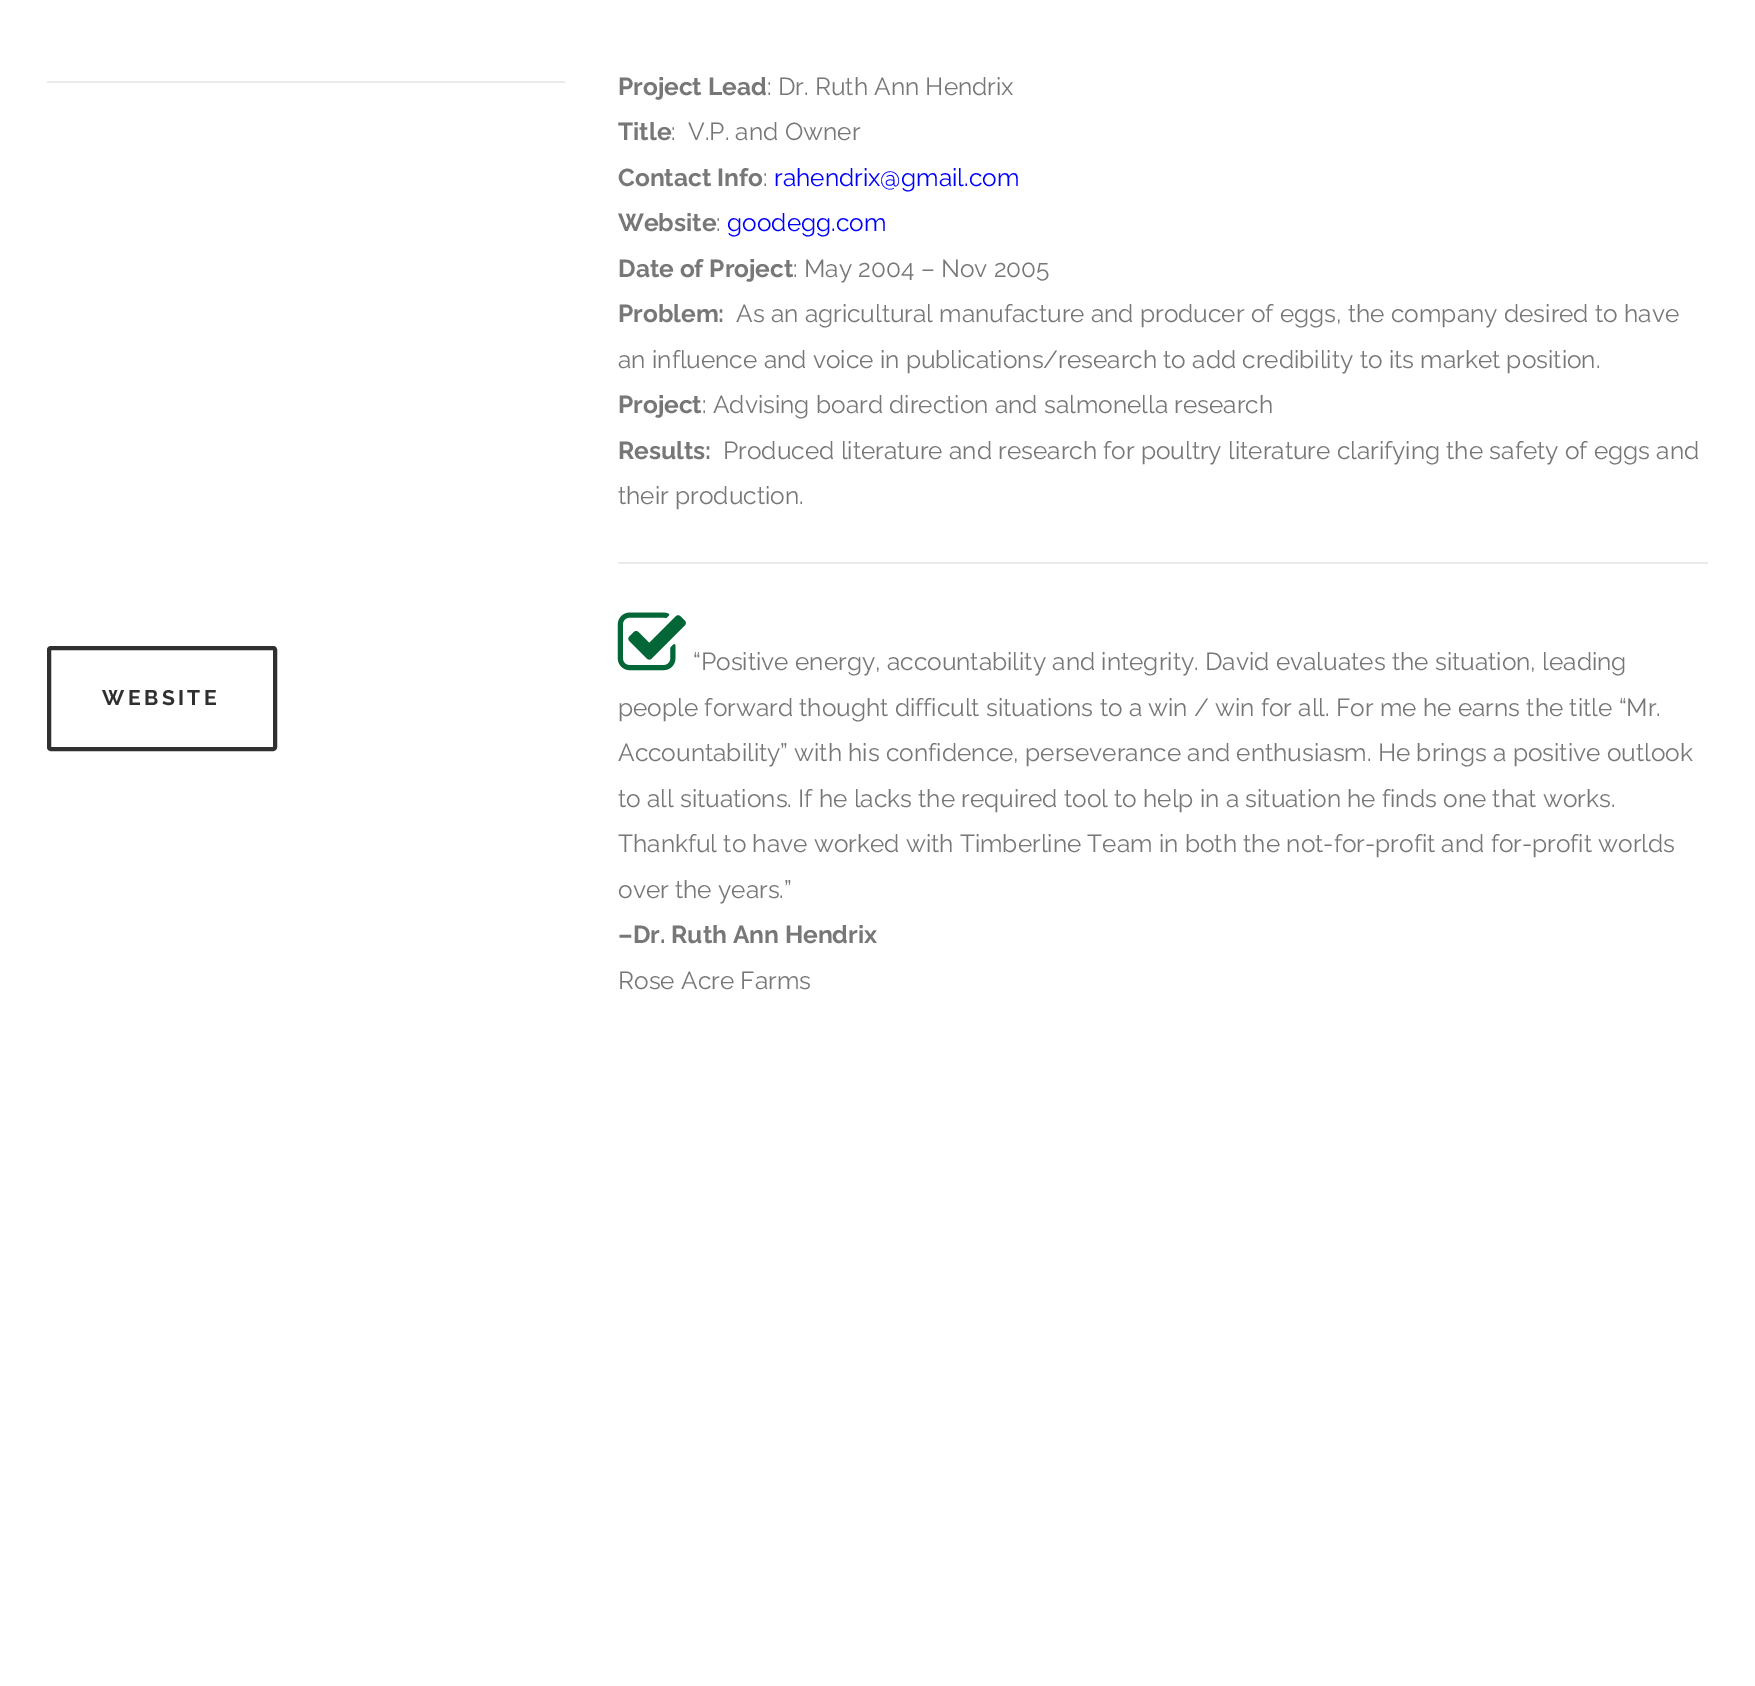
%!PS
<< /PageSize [1755 1686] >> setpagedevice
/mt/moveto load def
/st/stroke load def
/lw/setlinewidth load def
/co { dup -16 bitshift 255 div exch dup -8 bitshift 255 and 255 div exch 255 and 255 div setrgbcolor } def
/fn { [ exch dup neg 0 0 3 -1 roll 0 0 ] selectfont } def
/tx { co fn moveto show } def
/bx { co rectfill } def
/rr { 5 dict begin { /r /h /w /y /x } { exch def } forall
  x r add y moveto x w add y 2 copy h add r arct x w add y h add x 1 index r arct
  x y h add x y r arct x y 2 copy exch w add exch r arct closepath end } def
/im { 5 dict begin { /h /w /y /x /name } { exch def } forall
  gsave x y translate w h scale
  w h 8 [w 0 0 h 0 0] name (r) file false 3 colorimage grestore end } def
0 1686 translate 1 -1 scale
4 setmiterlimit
0 0 1755 1686 16#FFFFFF bx
47 81 518 2 16#EAEAEA bx
16#303030 co
4 lw
49 648 226 101 2 rr st
618 562 1090 2 16#EAEAEA bx
(media/1.raw) 617 612 69 59 im
/Raleway-Bold 21 fn
16#303030 co
102 705 mt 3.5 0 (WEBSITE) ashow
(Project Lead) 618 95 /Raleway-Bold 24.5 16#777777 tx
(: Dr. Ruth Ann Hendrix) 767 95 /Raleway-Regular 24.5 16#777777 tx
(Title) 618 140 /Raleway-Bold 24.5 16#777777 tx
(:  V.P. and Owner) 671 140 /Raleway-Regular 24.5 16#777777 tx
(Contact Info) 618 186 /Raleway-Bold 24.5 16#777777 tx
(:) 763 186 /Raleway-Regular 24.5 16#777777 tx
(rahendrix@gmail.com) 774 186 /Raleway-Regular 24.5 16#0000FF tx
(Website) 618 231 /Raleway-Bold 24.5 16#777777 tx
(:) 716 231 /Raleway-Regular 24.5 16#777777 tx
(goodegg.com) 727 231 /Raleway-Regular 24.5 16#0000FF tx
(Date of Project) 618 277 /Raleway-Bold 24.5 16#777777 tx
(: May 2004 – Nov 2005) 793 277 /Raleway-Regular 24.5 16#777777 tx
(Problem:) 618 322 /Raleway-Bold 24.5 16#777777 tx
(As an agricultural manufacture and producer of eggs, the company desired to have) 736 322 /Raleway-Regular 24.5 16#777777 tx
(an influence and voice in publications/research to add credibility to its market position.) 618 368 /Raleway-Regular 24.5 16#777777 tx
(Project) 618 413 /Raleway-Bold 24.5 16#777777 tx
(: Advising board direction and salmonella research) 702 413 /Raleway-Regular 24.5 16#777777 tx
(Results:) 618 459 /Raleway-Bold 24.5 16#777777 tx
(Produced literature and research for poultry literature clarifying the safety of eggs and) 723 459 /Raleway-Regular 24.5 16#777777 tx
(their production.) 618 504 /Raleway-Regular 24.5 16#777777 tx
(“Positive energy, accountability and integrity. David evaluates the situation, leading) 693 670 /Raleway-Regular 24.5 16#777777 tx
(people forward thought difficult situations to a win / win for all. For me he earns the title “Mr.) 618 716 /Raleway-Regular 24.5 16#777777 tx
(Accountability” with his confidence, perseverance and enthusiasm. He brings a positive outlook) 618 761 /Raleway-Regular 24.5 16#777777 tx
(to all situations. If he lacks the required tool to help in a situation he finds one that works.) 618 807 /Raleway-Regular 24.5 16#777777 tx
(Thankful to have worked with Timberline Team in both the not-for-profit and for-profit worlds) 618 852 /Raleway-Regular 24.5 16#777777 tx
(over the years.”) 618 898 /Raleway-Regular 24.5 16#777777 tx
(–Dr. Ruth Ann Hendrix) 618 943 /Raleway-Bold 24.5 16#777777 tx
(Rose Acre Farms) 618 989 /Raleway-Regular 24.5 16#777777 tx
showpage
